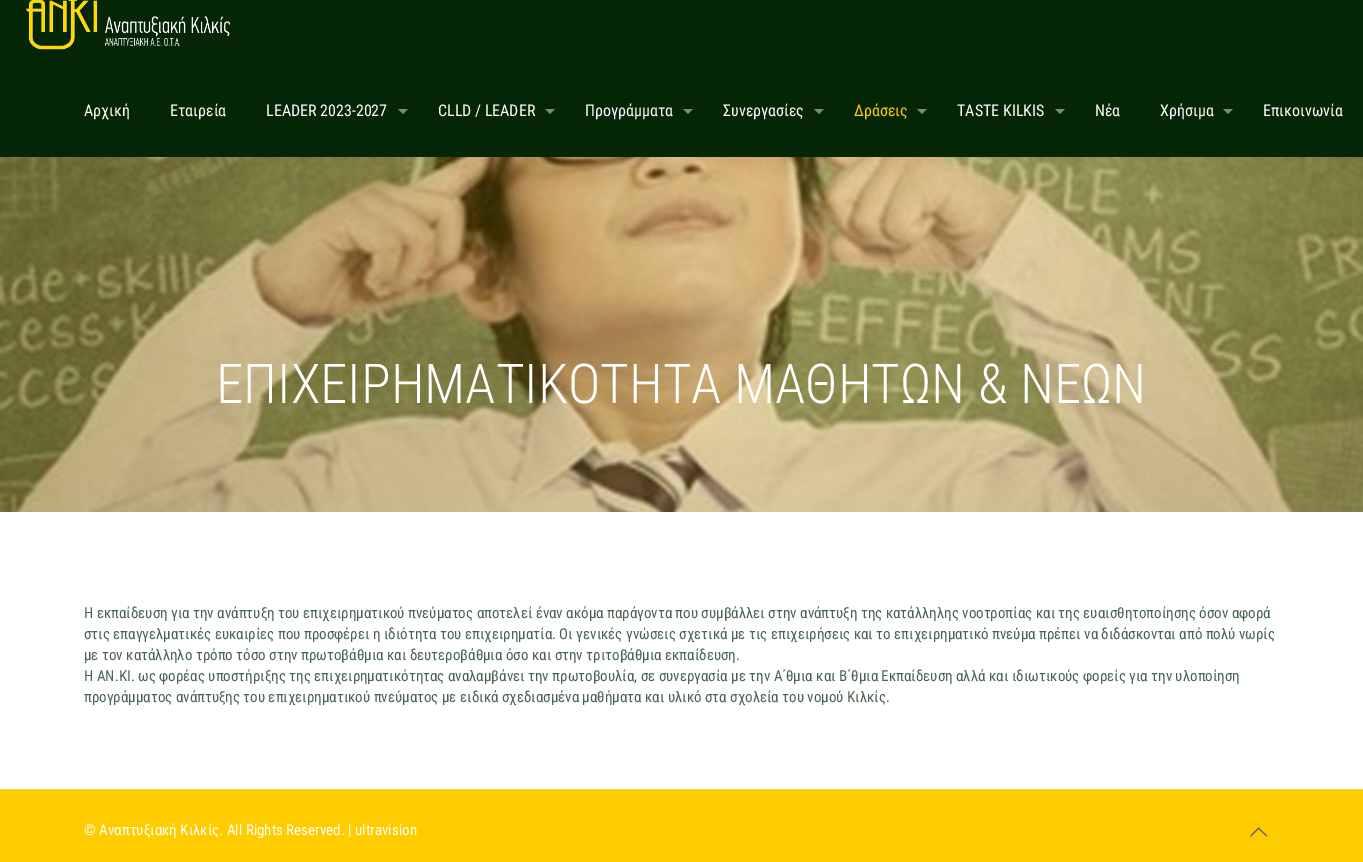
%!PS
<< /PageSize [1363 862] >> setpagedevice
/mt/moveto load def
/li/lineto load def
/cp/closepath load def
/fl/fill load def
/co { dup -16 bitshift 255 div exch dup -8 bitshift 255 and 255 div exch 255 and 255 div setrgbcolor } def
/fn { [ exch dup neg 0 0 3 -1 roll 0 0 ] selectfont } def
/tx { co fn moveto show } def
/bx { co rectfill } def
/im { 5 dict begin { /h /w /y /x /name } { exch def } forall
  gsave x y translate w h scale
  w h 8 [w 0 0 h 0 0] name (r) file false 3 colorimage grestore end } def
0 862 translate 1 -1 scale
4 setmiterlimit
0 0 1363 862 16#FFFFFF bx
(media/1.raw) 0 157 1363 355 im
0 0 1363 157 16#052606 bx
(media/2.raw) 26 0 205 50 im
16#7C8A7D co
398 109 mt 408 109 li 403 114 li cp fl
545 109 mt 555 109 li 550 114 li cp fl
683 109 mt 693 109 li 688 114 li cp fl
814 109 mt 824 109 li 819 114 li cp fl
917 109 mt 927 109 li 922 114 li cp fl
1055 109 mt 1065 109 li 1060 114 li cp fl
1223 109 mt 1233 109 li 1228 114 li cp fl
0 790 1363 72 16#FFCC00 bx
0 789 1363 1 16#FFD11A bx
(media/3.raw) 1250 827 18 10 im
(Αρχική) 84 116 /RobotoCondensed-Regular 16 16#FFFFFF tx
(Εταιρεία) 170 116 /RobotoCondensed-Regular 16 16#FFFFFF tx
(LEADER 2023-2027) 266 116 /RobotoCondensed-Regular 16 16#FFFFFF tx
(CLLD / LEADER) 438 116 /RobotoCondensed-Regular 16 16#FFFFFF tx
(Προγράμματα) 585 116 /RobotoCondensed-Regular 16 16#FFFFFF tx
(Συνεργασίες) 723 116 /RobotoCondensed-Regular 16 16#FFFFFF tx
(Δράσεις) 854 116 /RobotoCondensed-Regular 16 16#FFCC00 tx
(TASTE KILKIS) 957 116 /RobotoCondensed-Regular 16 16#FFFFFF tx
(Νέα) 1095 116 /RobotoCondensed-Regular 16 16#FFFFFF tx
(Χρήσιμα) 1160 116 /RobotoCondensed-Regular 16 16#FFFFFF tx
(Επικοινωνία) 1263 116 /RobotoCondensed-Regular 16 16#FFFFFF tx
(ΕΠΙΧΕΙΡΗΜΑΤΙΚΟΤΗΤΑ ΜΑΘΗΤΩΝ & ΝΕΩΝ) 216 403 /RobotoCondensed-Light 55 16#FFFFFF tx
(Η εκπαίδευση για την ανάπτυξη του επιχειρηματικού πνεύματος αποτελεί έναν ακόμα παράγοντα που συμβάλλει στην ανάπτυξη της κατάλληλης νοοτροπίας και της ευαισθητοποίησης όσον αφορά) 84 618 /RobotoCondensed-Regular 15 16#486350 tx
(στις επαγγελματικές ευκαιρίες που προσφέρει η ιδιότητα του επιχειρηματία. Οι γενικές γνώσεις σχετικά με τις επιχειρήσεις και το επιχειρηματικό πνεύμα πρέπει να διδάσκονται από πολύ νωρίς) 84 639 /RobotoCondensed-Regular 15 16#486350 tx
(με τον κατάλληλο τρόπο τόσο στην πρωτοβάθμια και δευτεροβάθμια όσο και στην τριτοβάθμια εκπαίδευση.) 84 660 /RobotoCondensed-Regular 15 16#486350 tx
(Η ΑΝ.ΚΙ. ως φορέας υποστήριξης της επιχειρηματικότητας αναλαμβάνει την πρωτοβουλία, σε συνεργασία με την Α΄θμια και Β΄θμια Εκπαίδευση αλλά και ιδιωτικούς φορείς για την υλοποίηση) 84 681 /RobotoCondensed-Regular 15 16#486350 tx
(προγράμματος ανάπτυξης του επιχειρηματικού πνεύματος με ειδικά σχεδιασμένα μαθήματα και υλικό στα σχολεία του νομού Κιλκίς.) 84 702 /RobotoCondensed-Regular 15 16#486350 tx
(© Αναπτυξιακή Κιλκίς. All Rights Reserved. | ultravision) 84 835 /RobotoCondensed-Regular 15 16#FFFFFF tx
showpage
